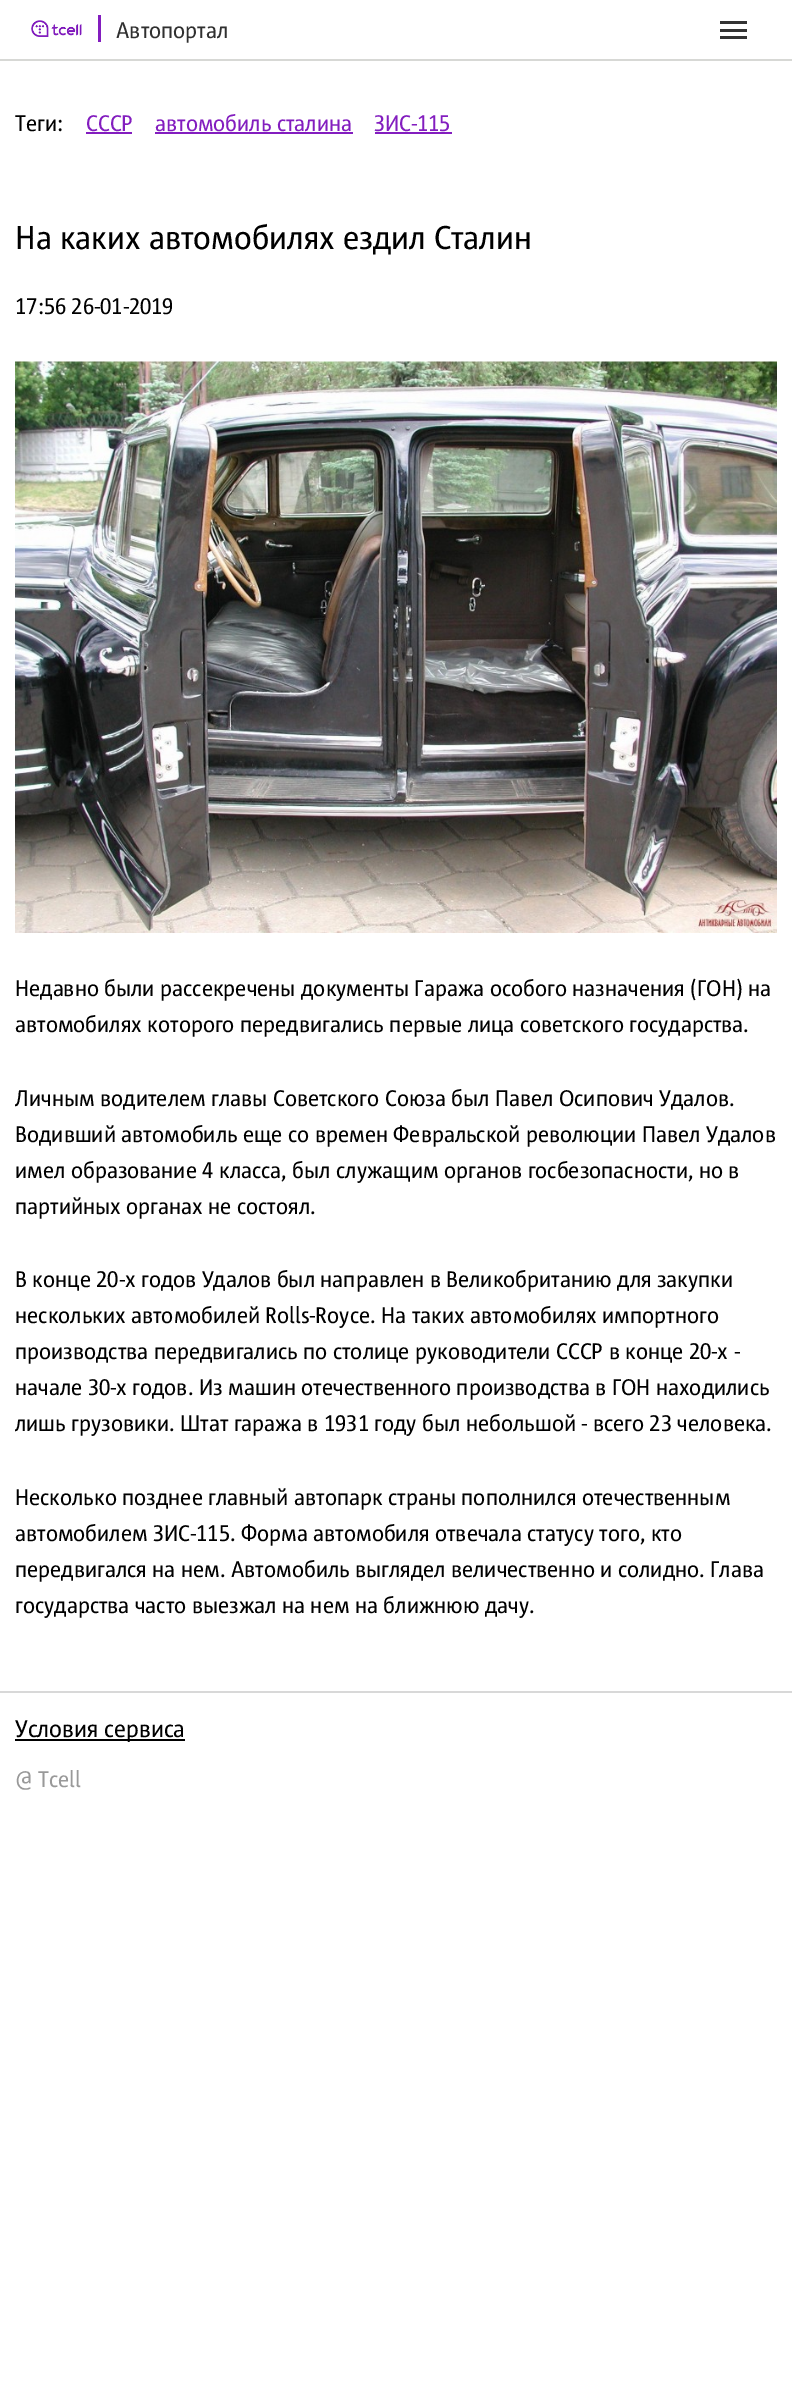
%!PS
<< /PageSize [792 2395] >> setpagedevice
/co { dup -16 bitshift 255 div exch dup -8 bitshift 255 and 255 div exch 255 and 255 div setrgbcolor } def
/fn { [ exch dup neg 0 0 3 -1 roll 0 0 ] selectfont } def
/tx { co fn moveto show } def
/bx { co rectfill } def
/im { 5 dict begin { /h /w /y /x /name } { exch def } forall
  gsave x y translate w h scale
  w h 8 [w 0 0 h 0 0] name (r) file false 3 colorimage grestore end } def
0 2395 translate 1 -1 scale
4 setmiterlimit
0 0 792 2395 16#FFFFFF bx
0 59 792 2 16#D7D8D5 bx
(media/1.raw) 31 20 51 17 im
98 15 3 27 16#831DBF bx
720 21 27 3 16#333333 bx
720 29 27 3 16#333333 bx
720 36 27 3 16#333333 bx
86 132 46 2 16#831DBF bx
155 132 198 2 16#831DBF bx
375 132 77 2 16#831DBF bx
(media/2.raw) 15 361 762 572 im
0 1691 792 2 16#D8D8D8 bx
15 1739 170 2 16#000000 bx
(Автопортал) 116 38 /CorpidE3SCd-Regular 22.5 16#303030 tx
(Теги:) 15 131 /CorpidE3SCd-Regular 22.5 16#000000 tx
(СССР) 86 131 /CorpidE3SCd-Regular 22.5 16#831DBF tx
(автомобиль сталина) 155 131 /CorpidE3SCd-Regular 22.5 16#831DBF tx
(ЗИС-115) 374 131 /CorpidE3SCd-Regular 22.5 16#831DBF tx
(На каких автомобилях ездил Сталин) 15 249 /CorpidE3SCd-Regular 33 16#000000 tx
(17:56 26-01-2019) 15 314 /CorpidE3SCd-Regular 22.5 16#000000 tx
(Недавно были рассекречены документы Гаража особого назначения \(ГОН\) на) 15 996 /CorpidE3SCd-Regular 22.5 16#000000 tx
(автомобилях которого передвигались первые лица советского государства.) 15 1032 /CorpidE3SCd-Regular 22.5 16#000000 tx
(Личным водителем главы Советского Союза был Павел Осипович Удалов.) 15 1106 /CorpidE3SCd-Regular 22.5 16#000000 tx
(Водивший автомобиль еще со времен Февральской революции Павел Удалов) 15 1142 /CorpidE3SCd-Regular 22.5 16#000000 tx
(имел образование 4 класса, был служащим органов госбезопасности, но в) 15 1178 /CorpidE3SCd-Regular 22.5 16#000000 tx
(партийных органах не состоял.) 15 1214 /CorpidE3SCd-Regular 22.5 16#000000 tx
(В конце 20-х годов Удалов был направлен в Великобританию для закупки) 15 1287 /CorpidE3SCd-Regular 22.5 16#000000 tx
(нескольких автомобилей Rolls-Royce. На таких автомобилях импортного) 15 1323 /CorpidE3SCd-Regular 22.5 16#000000 tx
(производства передвигались по столице руководители СССР в конце 20-х -) 15 1359 /CorpidE3SCd-Regular 22.5 16#000000 tx
(начале 30-х годов. Из машин отечественного производства в ГОН находились) 15 1395 /CorpidE3SCd-Regular 22.5 16#000000 tx
(лишь грузовики. Штат гаража в 1931 году был небольшой - всего 23 человека.) 15 1431 /CorpidE3SCd-Regular 22.5 16#000000 tx
(Несколько позднее главный автопарк страны пополнился отечественным) 15 1505 /CorpidE3SCd-Regular 22.5 16#000000 tx
(автомобилем ЗИС-115. Форма автомобиля отвечала статусу того, кто) 15 1541 /CorpidE3SCd-Regular 22.5 16#000000 tx
(передвигался на нем. Автомобиль выглядел величественно и солидно. Глава) 15 1577 /CorpidE3SCd-Regular 22.5 16#000000 tx
(государства часто выезжал на нем на ближнюю дачу.) 15 1613 /CorpidE3SCd-Regular 22.5 16#000000 tx
(Условия сервиса) 15 1737 /CorpidE3SCd-Regular 24 16#000000 tx
(@ Tcell) 15 1787 /CorpidE3SCd-Regular 22.5 16#999999 tx
showpage
